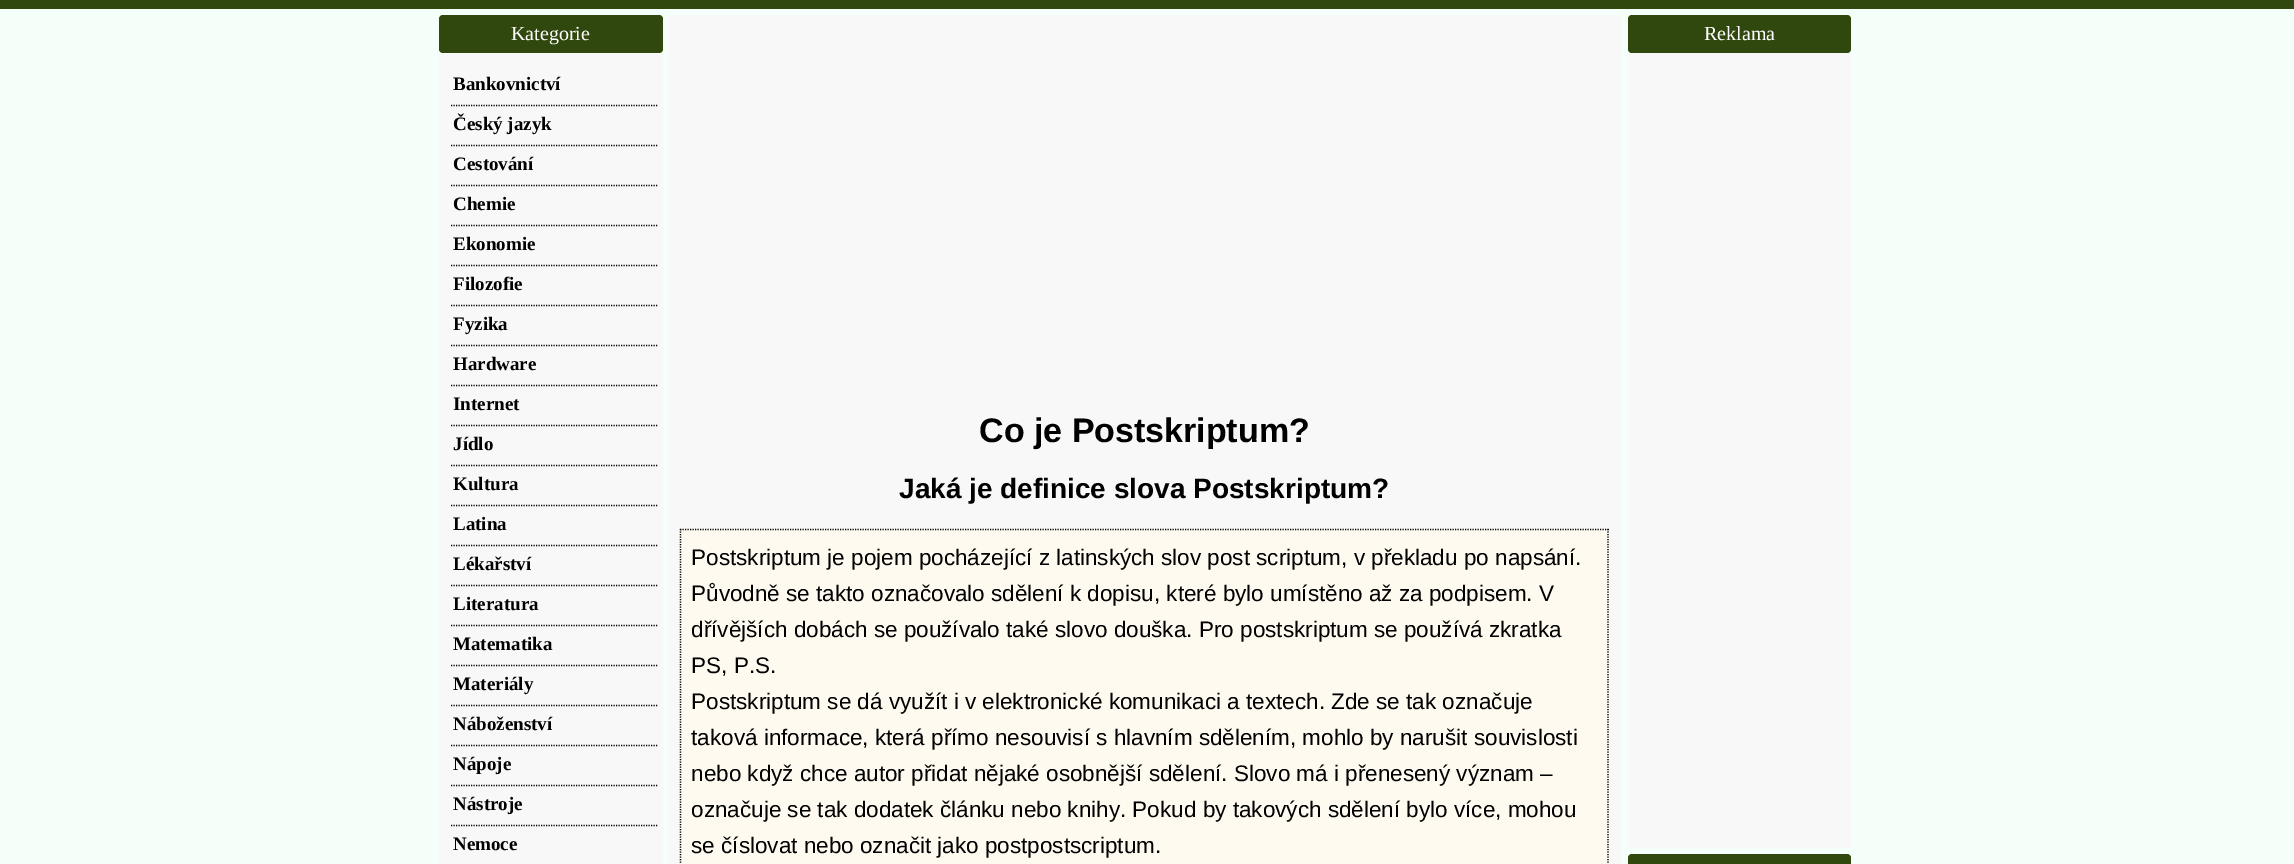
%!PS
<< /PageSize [2294 864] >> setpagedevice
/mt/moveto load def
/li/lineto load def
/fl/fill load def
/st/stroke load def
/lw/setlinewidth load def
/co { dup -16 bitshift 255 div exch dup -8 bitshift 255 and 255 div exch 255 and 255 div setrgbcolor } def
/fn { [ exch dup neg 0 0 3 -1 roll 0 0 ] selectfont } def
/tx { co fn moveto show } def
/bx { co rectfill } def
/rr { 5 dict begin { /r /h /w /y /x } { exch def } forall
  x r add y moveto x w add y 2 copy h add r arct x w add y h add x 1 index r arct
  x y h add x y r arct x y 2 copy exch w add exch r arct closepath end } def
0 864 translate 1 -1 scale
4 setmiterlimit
0 0 2294 864 16#F5FFFA bx
0 0 2294 9 16#30480E bx
439 15 224 38 4 rr fl
439 54 224 810 16#F8F8F8 bx
16#000000 co
1.2 lw
[1.25 1.25] 0 setdash
451 105.5 mt 657.5 105.5 li st
451 145.5 mt 657.5 145.5 li st
451 185.5 mt 657.5 185.5 li st
451 225.5 mt 657.5 225.5 li st
451 265.5 mt 657.5 265.5 li st
451 305.5 mt 657.5 305.5 li st
451 345.5 mt 657.5 345.5 li st
451 385.5 mt 657.5 385.5 li st
451 425.5 mt 657.5 425.5 li st
451 465.5 mt 657.5 465.5 li st
451 505.5 mt 657.5 505.5 li st
451 545.5 mt 657.5 545.5 li st
451 585.5 mt 657.5 585.5 li st
451 625.5 mt 657.5 625.5 li st
451 665.5 mt 657.5 665.5 li st
451 705.5 mt 657.5 705.5 li st
451 745.5 mt 657.5 745.5 li st
451 785.5 mt 657.5 785.5 li st
451 825.5 mt 657.5 825.5 li st
16#30480E co
1628 15 223 38 4 rr fl
1628 53 223 795 16#F8F8F8 bx
16#30480E co
1628 854 223 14 4 rr fl
668 15 953 849 16#F8F8F8 bx
680 529 929 335 16#FFFAF0 bx
16#000000 co
680 529.5 mt 1609 529.5 li st
1608 529 mt 1608 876 li st
680.5 529 mt 680.5 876 li st
(Kategorie) 511 40 /LiberationSerif-Regular 20 16#FFFFFF tx
(Bankovnictví) 453 90 /LiberationSerif-Bold 19 16#000000 tx
(Český jazyk) 453 130 /LiberationSerif-Bold 19 16#000000 tx
(Cestování) 453 170 /LiberationSerif-Bold 19 16#000000 tx
(Chemie) 453 210 /LiberationSerif-Bold 19 16#000000 tx
(Ekonomie) 453 250 /LiberationSerif-Bold 19 16#000000 tx
(Filozofie) 453 290 /LiberationSerif-Bold 19 16#000000 tx
(Fyzika) 453 330 /LiberationSerif-Bold 19 16#000000 tx
(Hardware) 453 370 /LiberationSerif-Bold 19 16#000000 tx
(Internet) 453 410 /LiberationSerif-Bold 19 16#000000 tx
(Jídlo) 453 450 /LiberationSerif-Bold 19 16#000000 tx
(Kultura) 453 490 /LiberationSerif-Bold 19 16#000000 tx
(Latina) 453 530 /LiberationSerif-Bold 19 16#000000 tx
(Lékařství) 453 570 /LiberationSerif-Bold 19 16#000000 tx
(Literatura) 453 610 /LiberationSerif-Bold 19 16#000000 tx
(Matematika) 453 650 /LiberationSerif-Bold 19 16#000000 tx
(Materiály) 453 690 /LiberationSerif-Bold 19 16#000000 tx
(Náboženství) 453 730 /LiberationSerif-Bold 19 16#000000 tx
(Nápoje) 453 770 /LiberationSerif-Bold 19 16#000000 tx
(Nástroje) 453 810 /LiberationSerif-Bold 19 16#000000 tx
(Nemoce) 453 850 /LiberationSerif-Bold 19 16#000000 tx
(Reklama) 1704 40 /LiberationSerif-Regular 20 16#FFFFFF tx
(Co je Postskriptum?) 979 442 /LiberationSans-Bold 34 16#000000 tx
(Jaká je definice slova Postskriptum?) 899 498 /LiberationSans-Bold 28 16#000000 tx
(Postskriptum je pojem pocházející z latinských slov post scriptum, v překladu po napsání.) 691 565 /LiberationSans-Regular 22.5 16#000000 tx
(Původně se takto označovalo sdělení k dopisu, které bylo umístěno až za podpisem. V) 691 601 /LiberationSans-Regular 22.5 16#000000 tx
(dřívějších dobách se používalo také slovo douška. Pro postskriptum se používá zkratka) 691 637 /LiberationSans-Regular 22.5 16#000000 tx
(PS, P.S.) 691 673 /LiberationSans-Regular 22.5 16#000000 tx
(Postskriptum se dá využít i v elektronické komunikaci a textech. Zde se tak označuje) 691 709 /LiberationSans-Regular 22.5 16#000000 tx
(taková informace, která přímo nesouvisí s hlavním sdělením, mohlo by narušit souvislosti) 691 745 /LiberationSans-Regular 22.5 16#000000 tx
(nebo když chce autor přidat nějaké osobnější sdělení. Slovo má i přenesený význam –) 691 781 /LiberationSans-Regular 22.5 16#000000 tx
(označuje se tak dodatek článku nebo knihy. Pokud by takových sdělení bylo více, mohou) 691 817 /LiberationSans-Regular 22.5 16#000000 tx
(se číslovat nebo označit jako postpostscriptum.) 691 853 /LiberationSans-Regular 22.5 16#000000 tx
showpage
